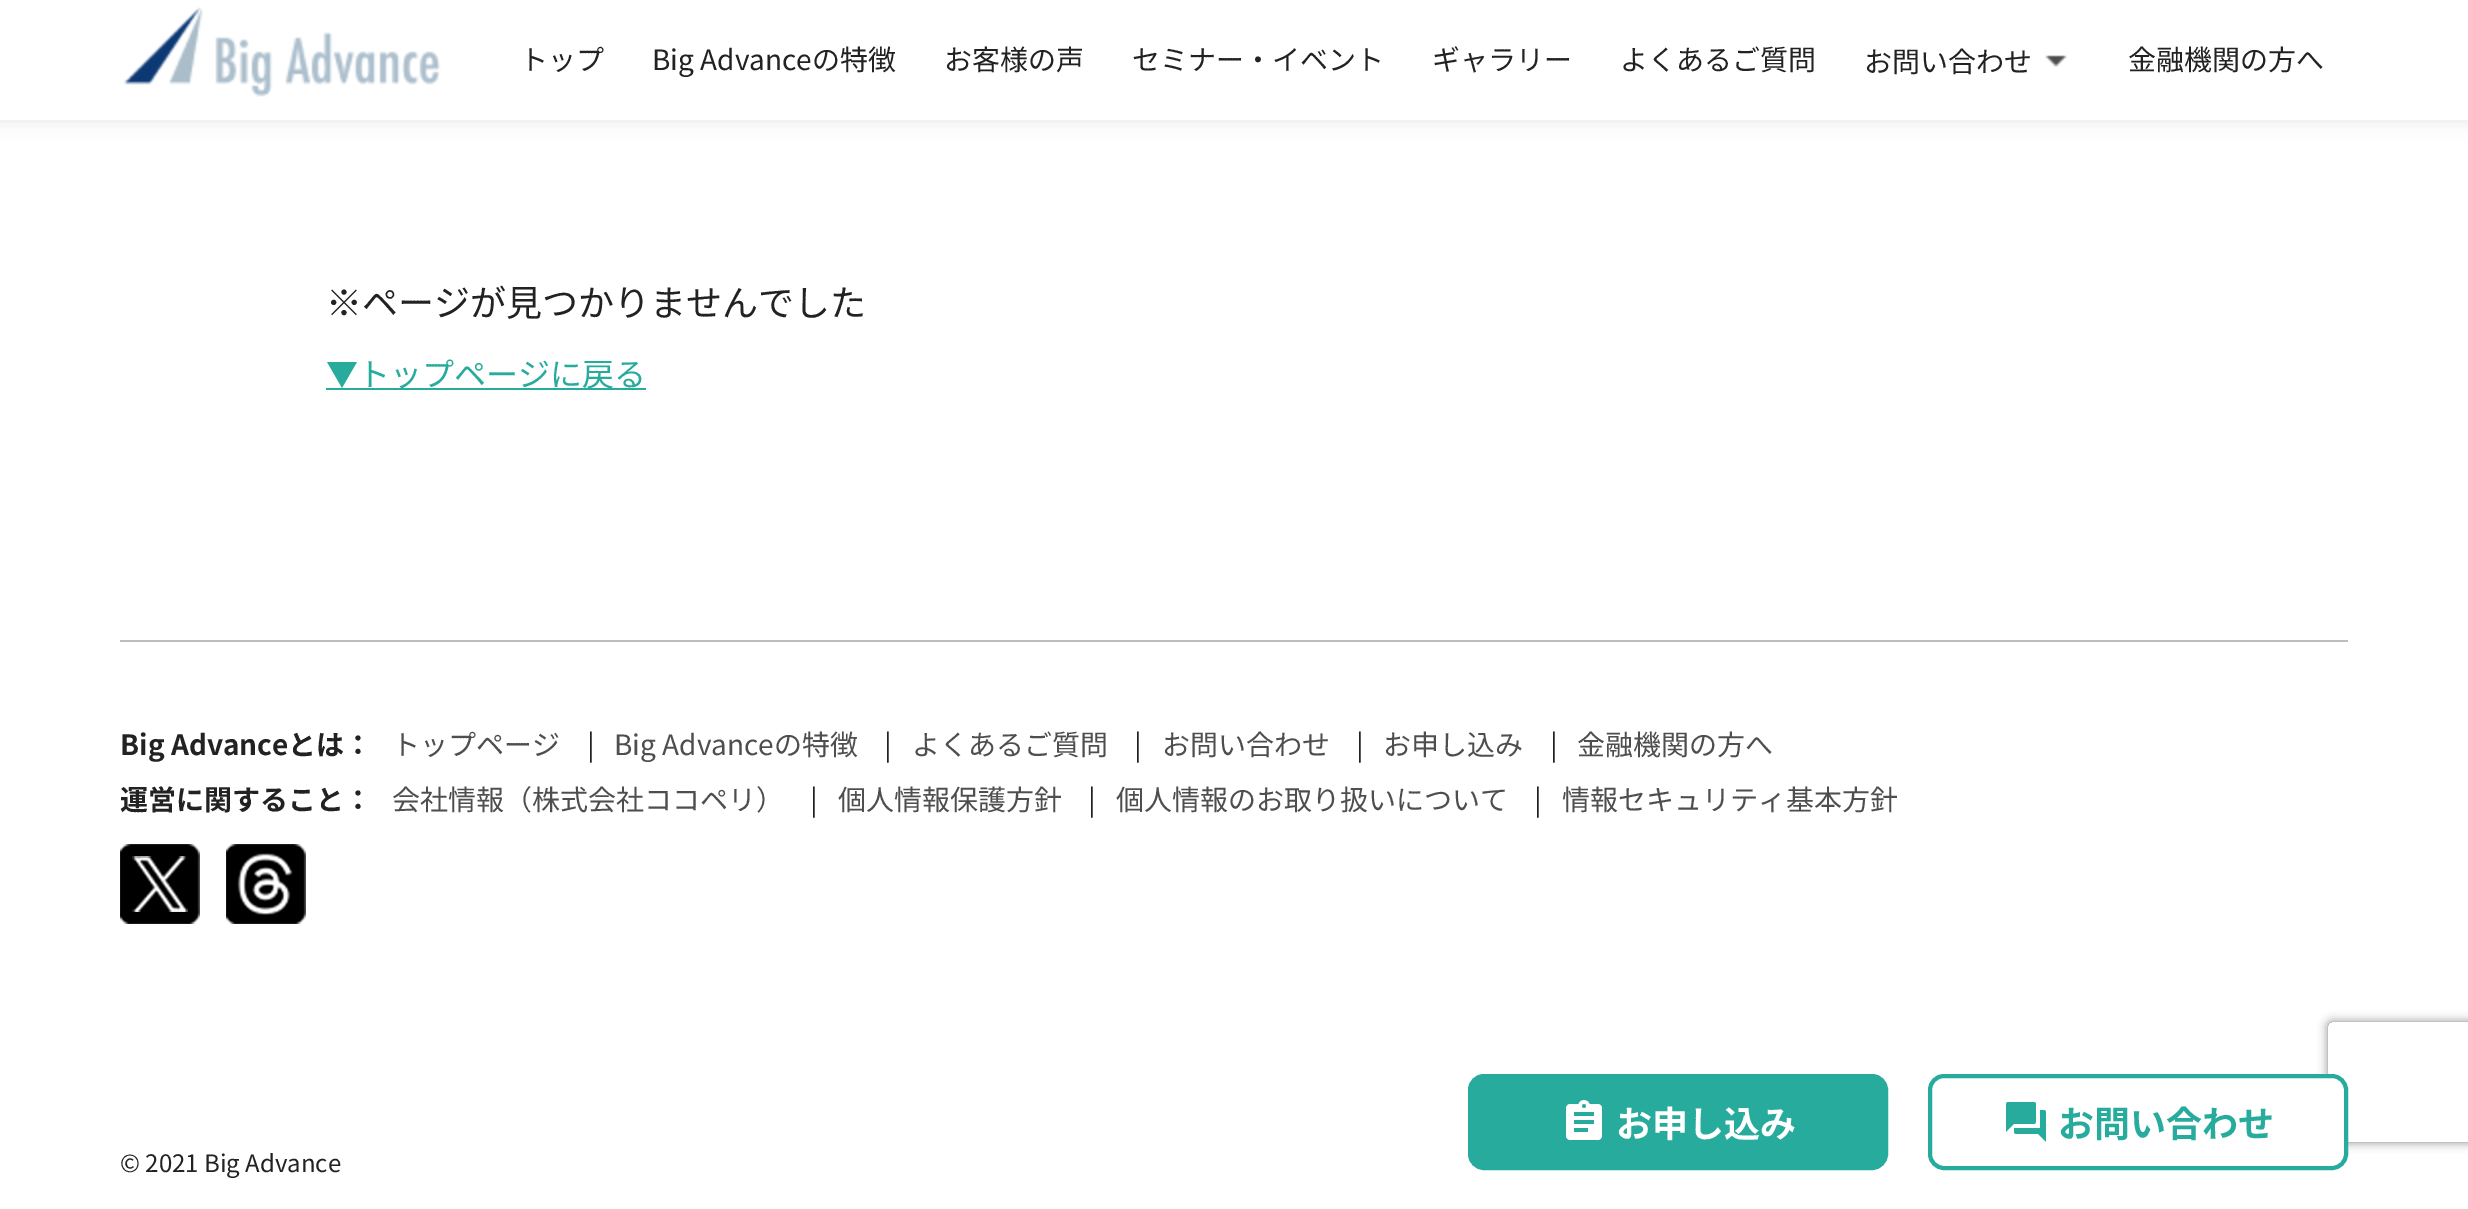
%!PS
<< /PageSize [2468 1209] /PageUsesTransparency true >> setpagedevice
/mt/moveto load def
/li/lineto load def
/ct/curveto load def
/cp/closepath load def
/fl/fill load def
/st/stroke load def
/gs/gsave load def
/gr/grestore load def
/lw/setlinewidth load def
/co { dup -16 bitshift 255 div exch dup -8 bitshift 255 and 255 div exch 255 and 255 div setrgbcolor } def
/fn { [ exch dup neg 0 0 3 -1 roll 0 0 ] selectfont } def
/tx { co fn moveto show } def
/bx { co rectfill } def
/al { dup .setfillconstantalpha .setstrokeconstantalpha } def
/rr { 5 dict begin { /r /h /w /y /x } { exch def } forall
  x r add y moveto x w add y 2 copy h add r arct x w add y h add x 1 index r arct
  x y h add x y r arct x y 2 copy exch w add exch r arct closepath end } def
/sh { 12 dict begin { /a /b /q /h /w /y /x } { exch def } forall gsave /was 0 def
  9 -2 -9 { dup b mul 4 div /e exch def 1 sub .425 mul 2.718 exch exp 1 add a .99 .min exch div /now exch def
    1 1 now sub 1 was sub div sub al /was now def
    w h .min e 2 mul add 0 gt { x e sub y e sub w e 2 mul add h e 2 mul add
      q e add b .6 mul add w h .min 2 div e add .min 0 .max rr fill } if } for grestore end } def
/im { 5 dict begin { /h /w /y /x /name } { exch def } forall
  gsave x y translate w h scale
  w h 8 [w 0 0 h 0 0] name (r) file false 3 colorimage grestore end } def
0 .pushpdf14devicefilter
0 1209 translate 1 -1 scale
4 setmiterlimit
0 0 2468 1209 16#FFFFFF bx
16#000000 co
-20 -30 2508 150 0 10 .1 sh
0 0 2468 120 16#FFFFFF bx
(media/1.raw) 123 7 318 90 im
(media/2.raw) 2045 55 22 12 im
326 388 320 2 16#26AB9D bx
120 640 2228 2 16#BDBDBD bx
(media/3.raw) 120 844 80 80 im
(media/4.raw) 226 844 80 80 im
16#26AB9D co
1470 1076 416 92 14 rr gs fl gr
4 lw
st
(media/5.raw) 1566 1100 36 40 im
gs
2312 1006 mt 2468 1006 li 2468 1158 li 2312 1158 li cp 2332 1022 mt 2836 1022 li 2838 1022 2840 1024 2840 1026 ct 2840 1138 li 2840 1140 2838 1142 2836 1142 ct 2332 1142 li 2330 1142 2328 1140 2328 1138 ct 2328 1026 li 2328 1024 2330 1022 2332 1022 ct cp eoclip newpath
16#808080 co
2328 1022 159 120 4 5 1 sh
gr
16#FFFFFF co
1930 1076 416 92 14 rr gs fl gr
16#26AB9D co
st
(media/6.raw) 2006 1102 40 40 im
(トップ) 520 70 /NotoSansJP-Regular 28 16#222222 tx
(Big Advanceの特徴) 652 70 /NotoSansJP-Regular 28 16#222222 tx
(お客様の声) 944 70 /NotoSansJP-Regular 28 16#222222 tx
(セミナー・イベント) 1132 70 /NotoSansJP-Regular 28 16#222222 tx
(ギャラリー) 1432 70 /NotoSansJP-Regular 28 16#222222 tx
(よくあるご質問) 1620 70 /NotoSansJP-Regular 28 16#222222 tx
(お問い合わせ) 1864 72 /NotoSansJP-Regular 28 16#222222 tx
(金融機関の方へ) 2128 70 /NotoSansJP-Regular 28 16#222222 tx
(※ページが見つかりませんでした) 326 316 /NotoSansJP-Regular 36 16#222222 tx
(▼トップページに戻る) 326 386 /NotoSansJP-Regular 32 16#26AB9D tx
(Big Advanceとは：) 120 755 /NotoSansJP-Bold 28 16#222222 tx
(トップページ) 392 755 /NotoSansJP-Regular 28 16#4E4E4E tx
(|) 587 755 /NotoSansJP-Regular 28 16#222222 tx
(Big Advanceの特徴) 614 755 /NotoSansJP-Regular 28 16#4E4E4E tx
(|) 884 755 /NotoSansJP-Regular 28 16#222222 tx
(よくあるご質問) 912 755 /NotoSansJP-Regular 28 16#4E4E4E tx
(|) 1134 755 /NotoSansJP-Regular 28 16#222222 tx
(お問い合わせ) 1162 755 /NotoSansJP-Regular 28 16#4E4E4E tx
(|) 1356 755 /NotoSansJP-Regular 28 16#222222 tx
(お申し込み) 1383 755 /NotoSansJP-Regular 28 16#4E4E4E tx
(|) 1550 755 /NotoSansJP-Regular 28 16#222222 tx
(金融機関の方へ) 1577 755 /NotoSansJP-Regular 28 16#4E4E4E tx
(運営に関すること：) 120 810 /NotoSansJP-Bold 28 16#222222 tx
(会社情報（株式会社ココペリ）) 392 810 /NotoSansJP-Regular 28 16#4E4E4E tx
(|) 810 810 /NotoSansJP-Regular 28 16#222222 tx
(個人情報保護方針) 838 810 /NotoSansJP-Regular 28 16#4E4E4E tx
(|) 1088 810 /NotoSansJP-Regular 28 16#222222 tx
(個人情報のお取り扱いについて) 1116 810 /NotoSansJP-Regular 28 16#4E4E4E tx
(|) 1534 810 /NotoSansJP-Regular 28 16#222222 tx
(情報セキュリティ基本方針) 1562 810 /NotoSansJP-Regular 28 16#4E4E4E tx
(お申し込み) 1616 1137 /NotoSansJP-Bold 36 16#FFFFFF tx
(お問い合わせ) 2058 1137 /NotoSansJP-Bold 36 16#26AB9D tx
(© 2021 Big Advance) 120 1172 /NotoSansJP-Regular 24 16#222222 tx
.poppdf14devicefilter showpage
